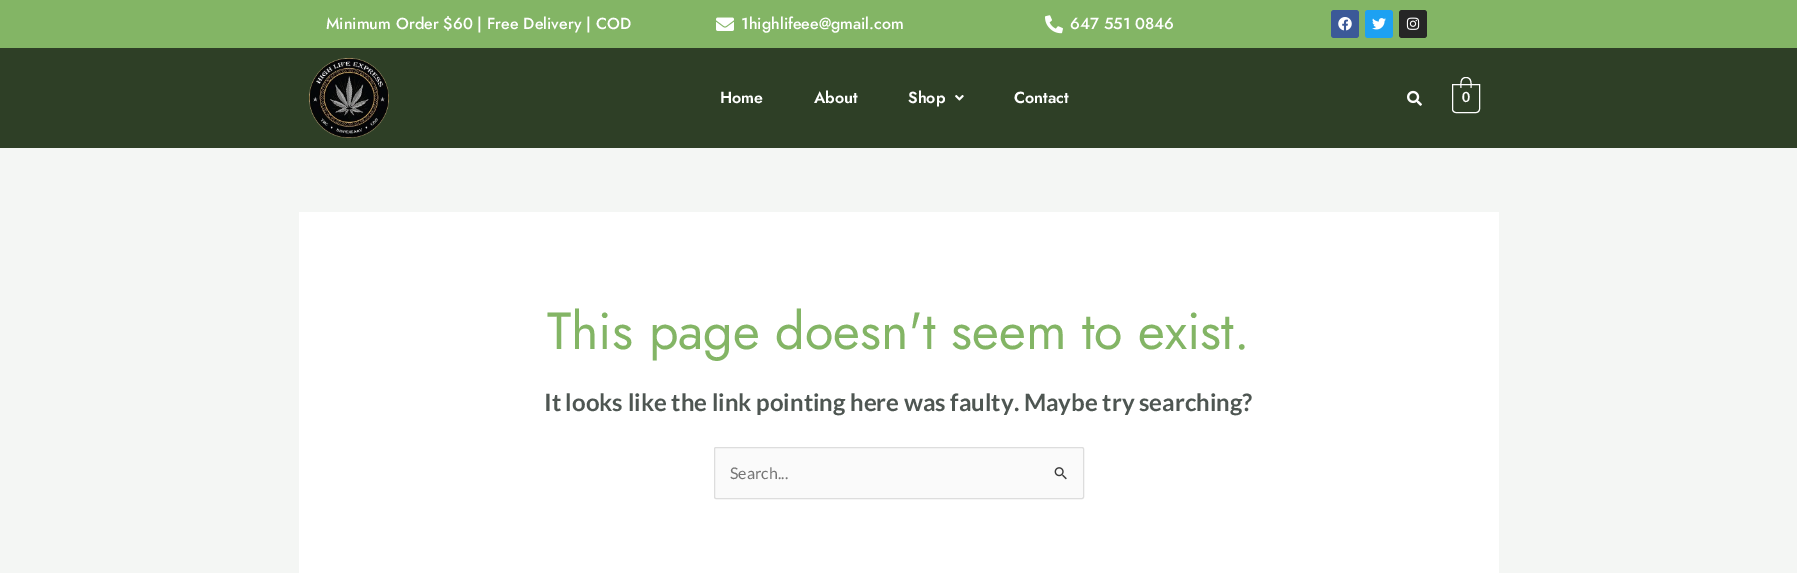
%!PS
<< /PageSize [1797 573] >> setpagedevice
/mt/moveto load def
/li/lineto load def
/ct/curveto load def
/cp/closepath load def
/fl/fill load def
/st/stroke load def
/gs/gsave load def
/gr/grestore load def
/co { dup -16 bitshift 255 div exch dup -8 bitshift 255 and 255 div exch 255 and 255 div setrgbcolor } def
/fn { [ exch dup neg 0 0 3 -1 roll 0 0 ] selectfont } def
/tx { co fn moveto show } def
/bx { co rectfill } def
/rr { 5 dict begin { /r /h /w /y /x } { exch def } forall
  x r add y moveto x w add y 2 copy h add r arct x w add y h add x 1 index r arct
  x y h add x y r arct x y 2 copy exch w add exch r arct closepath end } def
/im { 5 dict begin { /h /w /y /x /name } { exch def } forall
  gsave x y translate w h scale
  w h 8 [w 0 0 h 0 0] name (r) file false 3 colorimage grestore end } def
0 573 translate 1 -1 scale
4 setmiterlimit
0 0 1797 573 16#F4F6F4 bx
0 0 1797 48 16#83B565 bx
(media/1.raw) 716 17 18 14 im
(media/2.raw) 1045 15 18 19 im
16#3B5998 co
1331 10 28 28 3 rr fl
(media/3.raw) 1338 17 14 14 im
16#1DA1F2 co
1365 10 28 28 3 rr fl
(media/4.raw) 1372 18 14 12 im
16#262626 co
1399 10 28 28 3 rr fl
(media/5.raw) 1406 17 14 13 im
0 48 1797 100 16#2E3F26 bx
(media/6.raw) 309 58 80 80 im
(media/7.raw) 955 95 9 6 im
(media/8.raw) 1407 90 15 16 im
16#FFFFFF co
1452.5 84.5 mt 1479.5 84.5 li 1479.5 109 li 1479.5 111 1478 112.5 1476 112.5 ct 1456 112.5 li 1454 112.5 1452.5 111 1452.5 109 ct cp st
1466 77 mt 1472.5 77 1471.5 83.5 1471.5 88 ct 1460.5 88 li 1460.5 83.5 1459.5 77 1466 77 ct cp 1466 78 mt 1471.5 78 1470.5 84.5 1470.5 88 ct 1461.5 88 li 1461.5 84.5 1460.5 78 1466 78 ct cp eofill
299 212 1200 361 16#FFFFFF bx
16#FAFAFA co
714.5 447.5 369 51 1.5 rr gs fl gr
16#DDDDDD co
st
(media/9.raw) 1054 467 13 13 im
(Minimum Order $60 | Free Delivery | COD) 326 29 /Jost-Medium 16 16#FFFFFF tx
(1highlifeee@gmail.com) 741 29 /Jost-Medium 16 16#FFFFFF tx
(647 551 0846) 1070 29 /Jost-Medium 16 16#FFFFFF tx
(Home) 720 103 /Jost-SemiBold 16 16#FFFFFF tx
(About) 814 103 /Jost-SemiBold 16 16#FFFFFF tx
(Shop) 908 103 /Jost-SemiBold 16 16#FFFFFF tx
(Contact) 1014 103 /Jost-SemiBold 16 16#FFFFFF tx
(0) 1462 102 /Lato-Bold 14 16#FFFFFF tx
(This page doesn't seem to exist.) 547 349 /Jost-Regular 52 16#83B565 tx
(It looks like the link pointing here was faulty. Maybe try searching?) 544 411 /Lato-Bold 24 16#4E5652 tx
(Search...) 730 479 /Lato-Regular 16 16#757575 tx
showpage
